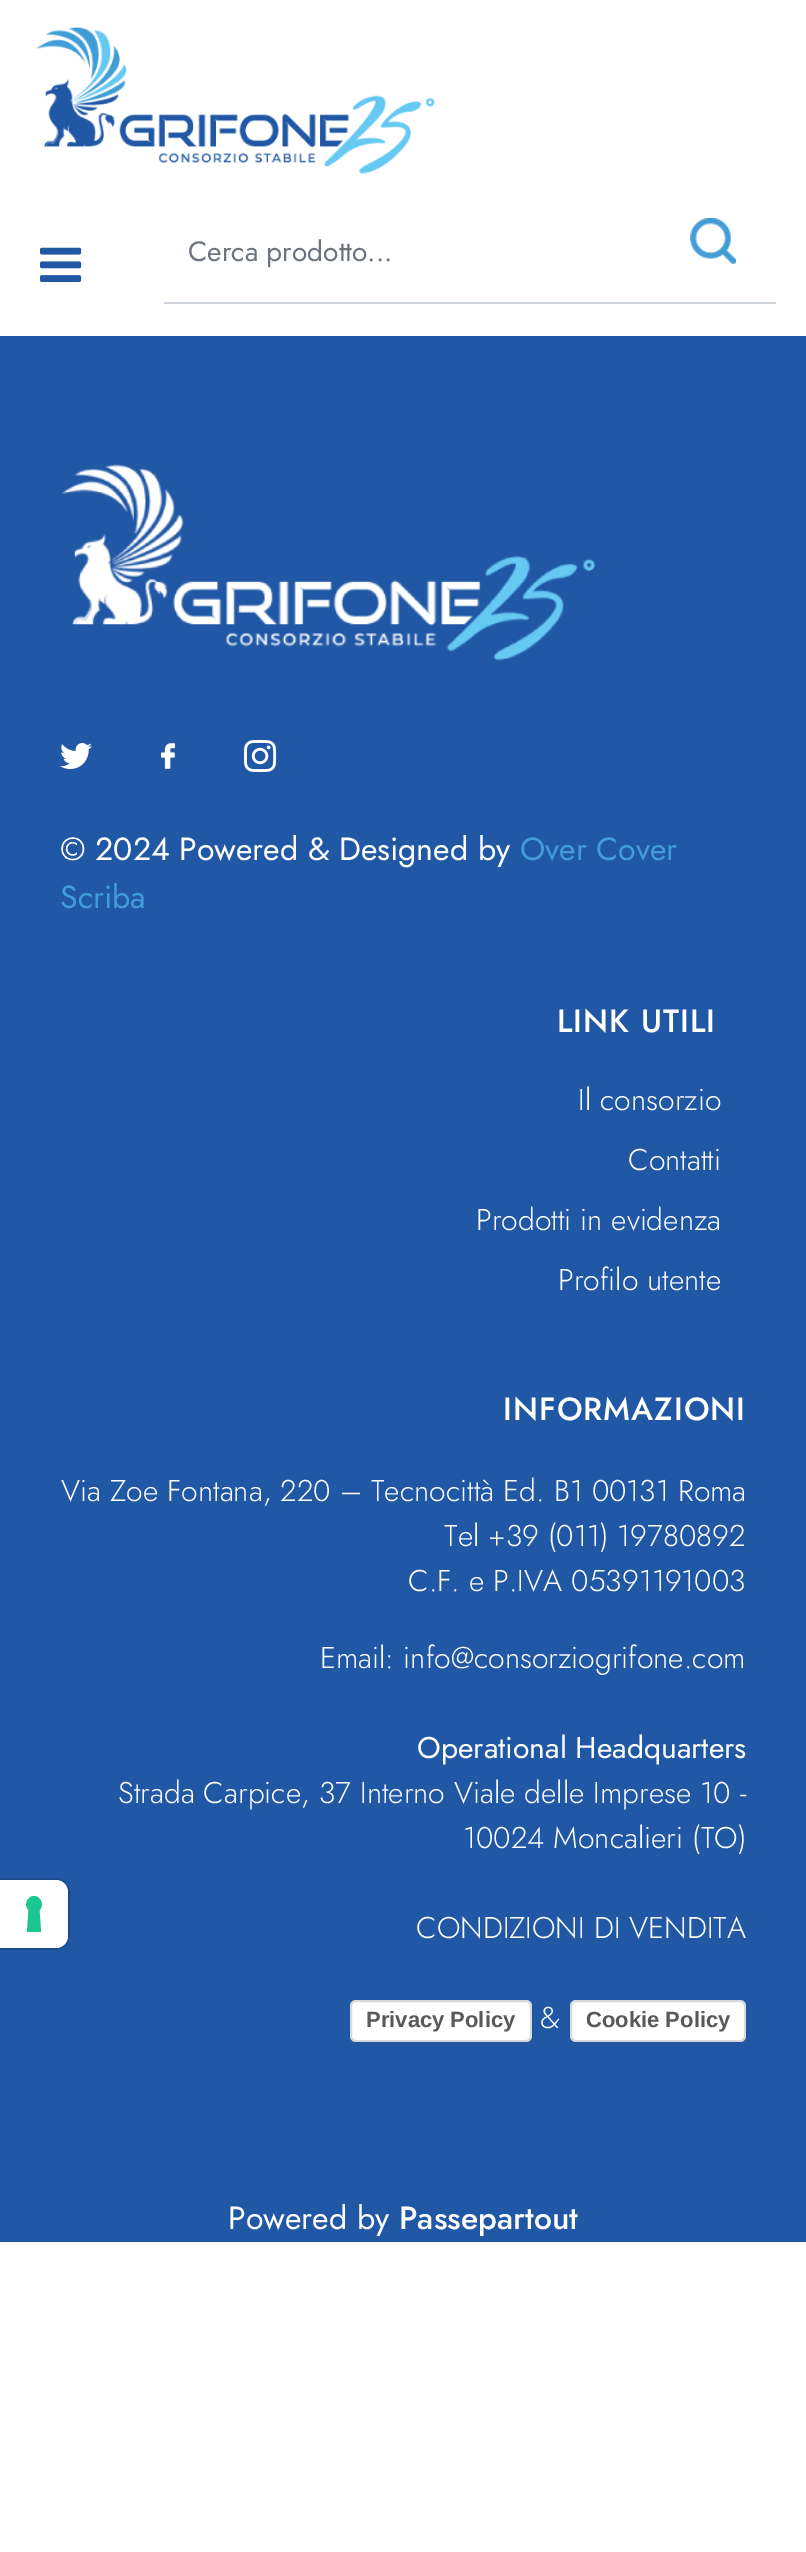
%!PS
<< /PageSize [806 2552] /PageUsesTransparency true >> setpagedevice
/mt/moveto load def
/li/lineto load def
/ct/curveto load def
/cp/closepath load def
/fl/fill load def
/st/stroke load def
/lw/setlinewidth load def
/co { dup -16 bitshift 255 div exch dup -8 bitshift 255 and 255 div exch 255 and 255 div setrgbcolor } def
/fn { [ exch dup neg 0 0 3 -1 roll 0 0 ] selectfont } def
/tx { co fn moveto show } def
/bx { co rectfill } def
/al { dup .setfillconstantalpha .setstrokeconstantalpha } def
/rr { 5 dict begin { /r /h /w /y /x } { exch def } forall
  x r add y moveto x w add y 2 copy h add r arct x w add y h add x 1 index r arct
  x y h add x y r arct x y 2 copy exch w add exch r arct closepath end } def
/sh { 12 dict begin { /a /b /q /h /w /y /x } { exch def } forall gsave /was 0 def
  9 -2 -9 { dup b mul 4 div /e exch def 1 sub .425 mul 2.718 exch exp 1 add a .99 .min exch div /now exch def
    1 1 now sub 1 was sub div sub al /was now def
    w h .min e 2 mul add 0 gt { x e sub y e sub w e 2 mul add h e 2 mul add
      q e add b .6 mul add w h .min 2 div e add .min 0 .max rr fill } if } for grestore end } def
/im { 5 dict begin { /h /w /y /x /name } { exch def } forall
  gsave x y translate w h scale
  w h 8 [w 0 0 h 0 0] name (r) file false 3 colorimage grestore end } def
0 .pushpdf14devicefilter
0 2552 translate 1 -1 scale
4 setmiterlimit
0 0 806 2552 16#FFFFFF bx
0 336 806 1906 16#2158A6 bx
16#1C4B8D co
2 lw
-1 1879 mt 56 1879 li 63 1879 69 1885 69 1892 ct 69 1936 li 69 1943 63 1949 56 1949 ct -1 1949 li cp st
16#FFFFFF co
0 1880 mt 56 1880 li 62.5 1880 68 1885.5 68 1892 ct 68 1936 li 68 1942.5 62.5 1948 56 1948 ct 0 1948 li cp fl
16#1CC691 co
34 1896 mt 41 1896 44.5 1905.5 39.5 1910 ct 41 1932 li 27 1932 li 28.5 1910 li 23.5 1905.5 27 1896 34 1896 ct cp eofill
(media/1.raw) 36 27 399 147 im
(media/2.raw) 40 247 42 35 im
164 302 612 2 16#CED4DA bx
(media/3.raw) 690 218 46 46 im
(media/4.raw) 62 464 534 197 im
(media/5.raw) 60 743 32 26 im
(media/6.raw) 161 743 14 26 im
(media/7.raw) 244 740 33 32 im
16#000000 co
352 2004 178 38 4 1 .15 sh
16#FFFFFF co
350 2000 182 42 6 rr fl
0.15 al
16#000000 co
351 2001 180 40 5 rr st
1 al
572 2004 172 38 4 1 .15 sh
16#FFFFFF co
570 2000 176 42 6 rr fl
0.15 al
16#000000 co
571 2001 174 40 5 rr st
1 al
(Cerca prodotto...) 188 261 /Jost-Regular 28 16#6C757D tx
(© 2024 Powered & Designed by) 60 860 /Jost-Regular 32 16#FFFFFF tx
(Over Cover) 520 860 /Jost-Regular 32 16#439CD6 tx
(Scriba) 60 908 /Jost-Regular 32 16#439CD6 tx
/Jost-Medium 32 fn
16#FFFFFF co
557 1032 mt 1 0 (LINK UTILI) ashow
(Il consorzio) 578 1110 /Jost-Light 30 16#FFFFFF tx
(Contatti) 628 1170 /Jost-Light 30 16#FFFFFF tx
(Prodotti in evidenza) 476 1230 /Jost-Light 30 16#FFFFFF tx
(Profilo utente) 558 1290 /Jost-Light 30 16#FFFFFF tx
/Jost-Medium 32 fn
503 1420 mt 1 0 (INFORMAZIONI) ashow
(Via Zoe Fontana, 220 – Tecnocittà Ed. B1 00131 Roma) 61 1501 /Jost-Light 30 16#FFFFFF tx
(Tel +39 \(011\) 19780892) 444 1546 /Jost-Light 30 16#FFFFFF tx
(C.F. e P.IVA 05391191003) 408 1591 /Jost-Light 30 16#FFFFFF tx
(Email: info@consorziogrifone.com) 320 1668 /Jost-Light 30 16#FFFFFF tx
(Operational Headquarters) 417 1758 /Jost-Regular 30 16#FFFFFF tx
(Strada Carpice, 37 Interno Viale delle Imprese 10 -) 118 1803 /Jost-Light 30 16#FFFFFF tx
(10024 Moncalieri \(TO\)) 463 1848 /Jost-Light 30 16#FFFFFF tx
(CONDIZIONI DI VENDITA) 416 1938 /Jost-Light 30 16#FFFFFF tx
(Privacy Policy) 366 2027 /LiberationSans-Bold 22 16#595959 tx
(&) 540 2028 /Jost-Light 30 16#FFFFFF tx
(Cookie Policy) 586 2027 /LiberationSans-Bold 22 16#595959 tx
(Powered by) 228 2229 /Jost-Regular 32 16#FFFFFF tx
(Passepartout) 399 2229 /Jost-Medium 32 16#FFFFFF tx
.poppdf14devicefilter showpage
